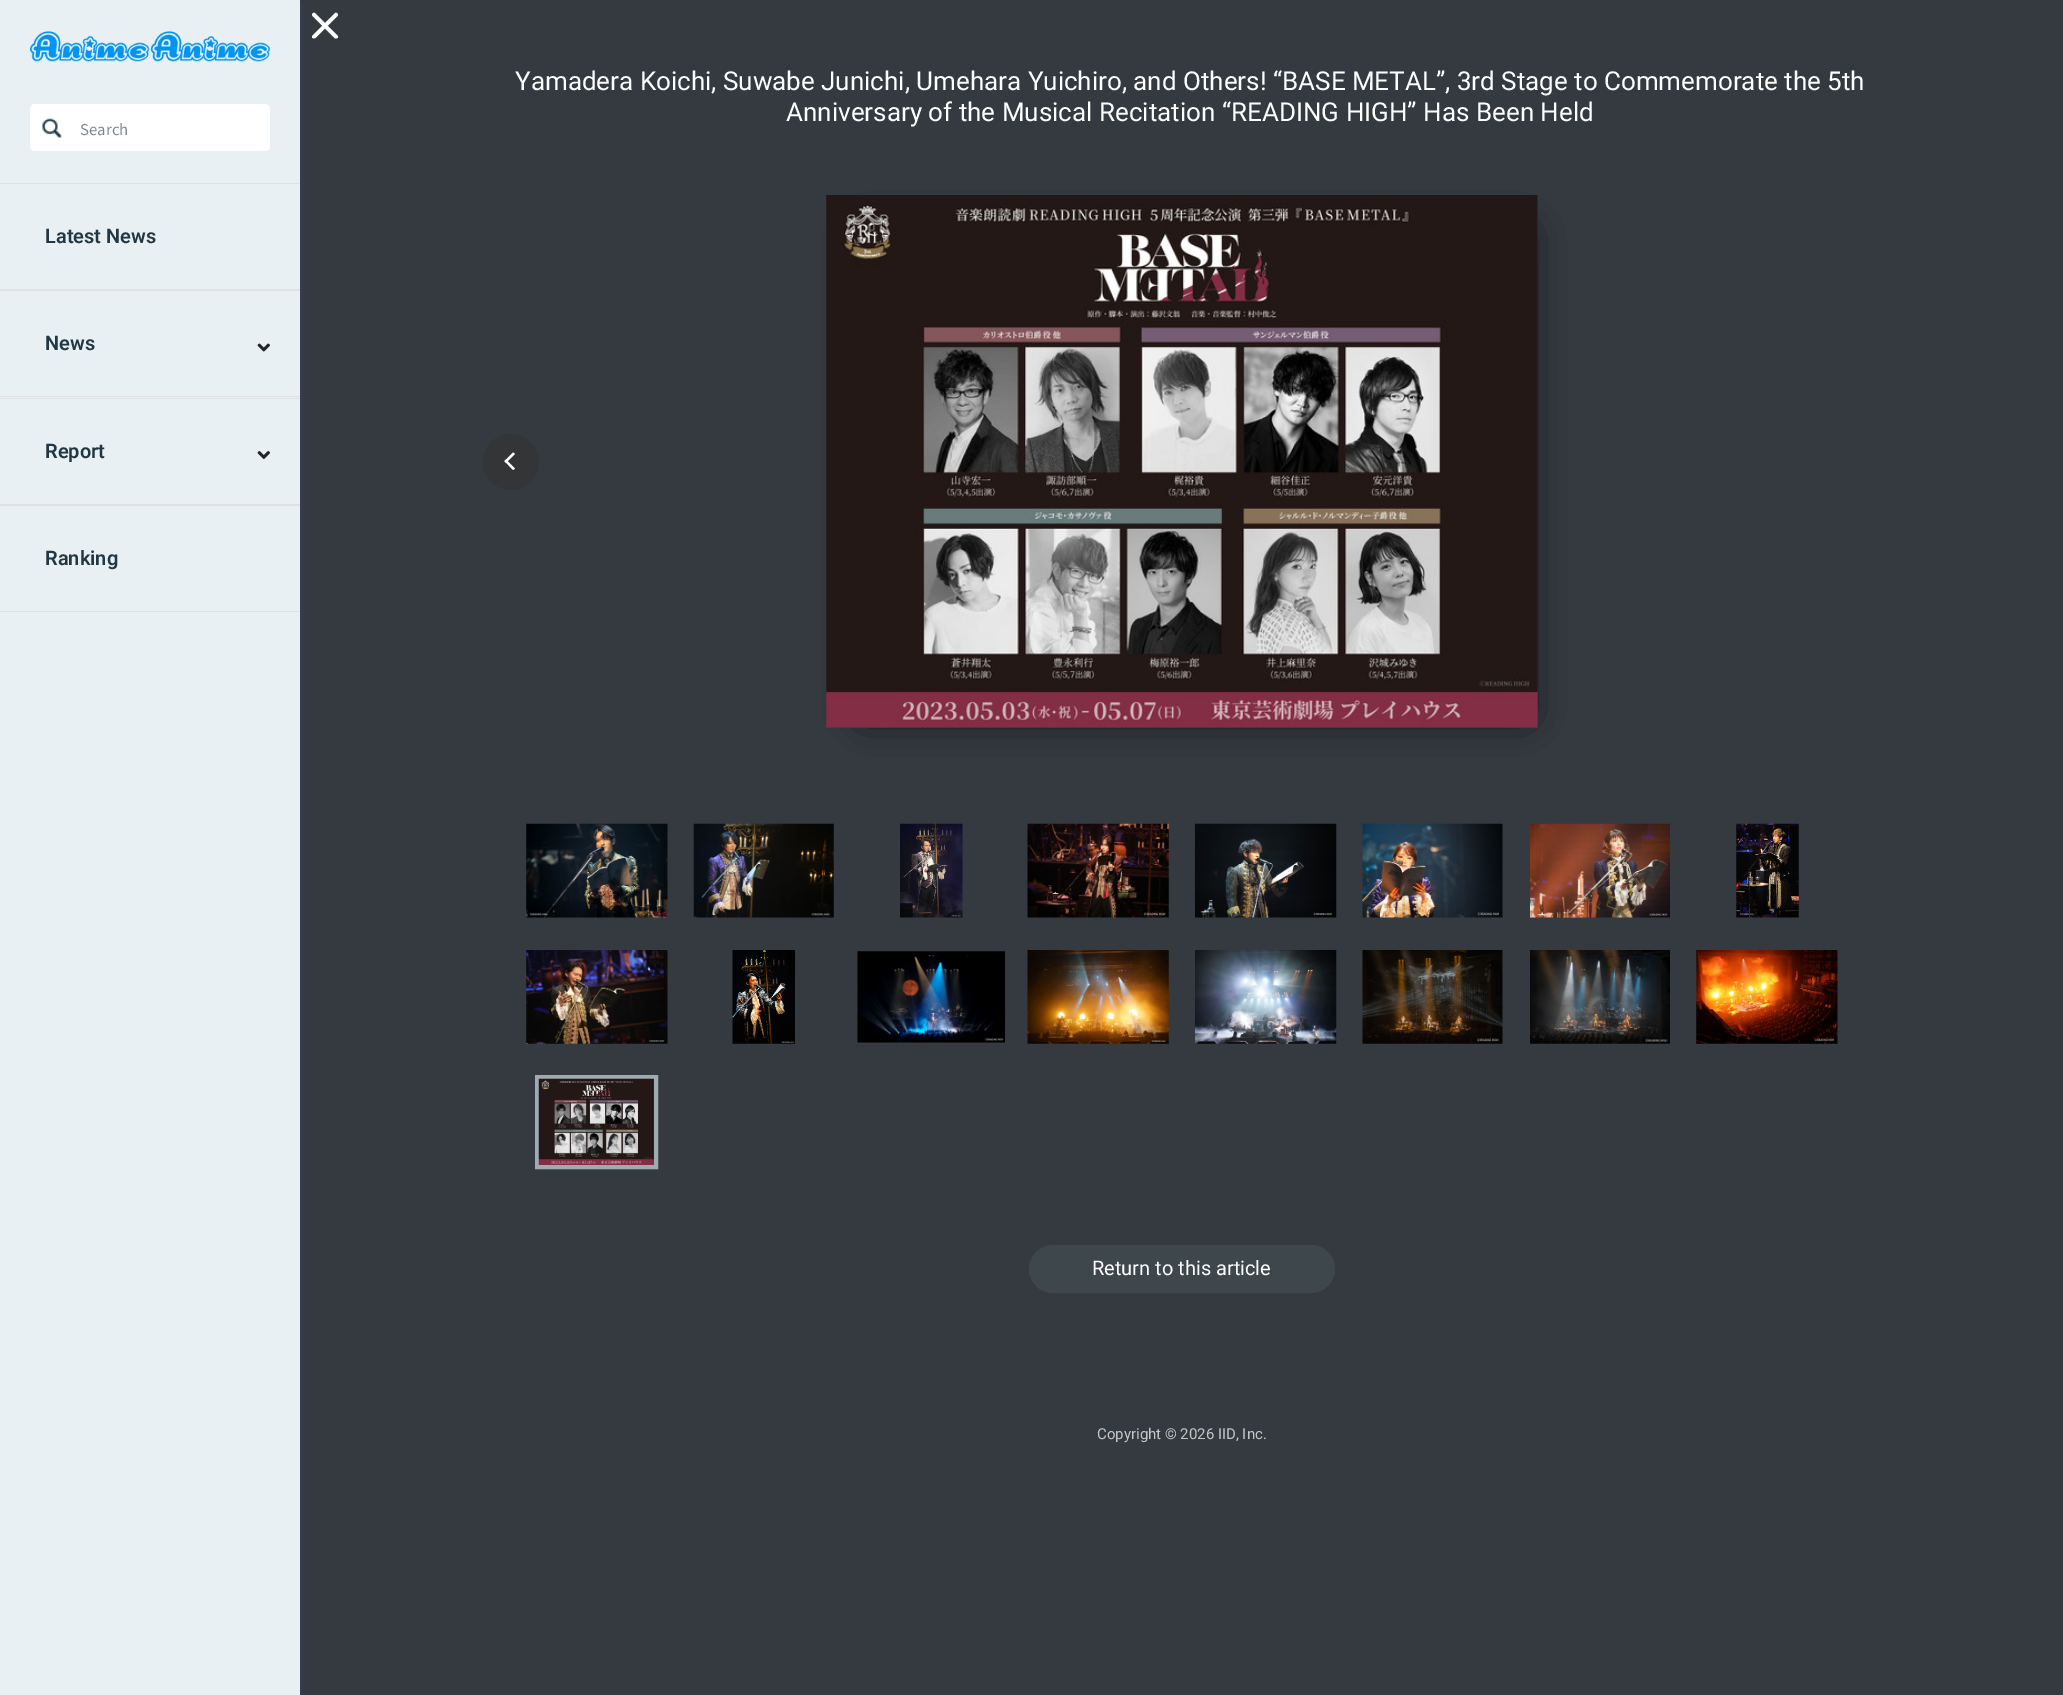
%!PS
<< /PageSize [2063 1695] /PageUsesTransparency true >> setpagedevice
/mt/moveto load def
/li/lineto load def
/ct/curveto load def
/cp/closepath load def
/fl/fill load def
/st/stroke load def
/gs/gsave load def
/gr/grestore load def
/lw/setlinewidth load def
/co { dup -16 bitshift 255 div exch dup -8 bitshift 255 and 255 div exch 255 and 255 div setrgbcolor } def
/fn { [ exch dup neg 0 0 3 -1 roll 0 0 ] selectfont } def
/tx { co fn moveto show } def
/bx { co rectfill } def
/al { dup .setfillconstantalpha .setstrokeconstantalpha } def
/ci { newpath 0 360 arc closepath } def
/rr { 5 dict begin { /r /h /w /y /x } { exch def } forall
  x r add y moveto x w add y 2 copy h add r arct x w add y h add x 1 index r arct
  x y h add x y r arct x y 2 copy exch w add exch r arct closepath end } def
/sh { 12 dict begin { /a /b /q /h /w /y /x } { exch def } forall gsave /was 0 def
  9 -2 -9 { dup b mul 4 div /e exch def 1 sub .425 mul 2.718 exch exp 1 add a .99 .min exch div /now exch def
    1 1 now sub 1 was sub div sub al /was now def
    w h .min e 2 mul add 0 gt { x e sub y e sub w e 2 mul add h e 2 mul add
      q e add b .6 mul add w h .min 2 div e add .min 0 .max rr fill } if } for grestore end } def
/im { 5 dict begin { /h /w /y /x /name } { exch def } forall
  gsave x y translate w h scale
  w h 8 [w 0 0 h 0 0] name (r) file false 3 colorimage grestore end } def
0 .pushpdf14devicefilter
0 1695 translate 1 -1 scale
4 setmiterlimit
0 0 2063 1695 16#343A40 bx
16#FFFFFF co
312.5 35.5 mt 334.5 13.5 li 335.5 12.5 336.5 12.5 337.5 13.5 ct 338 14 338 15 337.5 16 ct 315.5 38 li 314.5 38.5 313.5 38.5 312.5 38 ct 312 37.5 312 36 312.5 35.5 ct cp fl
315.5 13.5 mt 337.5 35.5 li 338 36 338 37.5 337.5 38 ct 336.5 38.5 335.5 38.5 334.5 38 ct 312.5 16 li 312 15 312 14 312.5 13.5 ct 313.5 12.5 314.5 12.5 315.5 13.5 ct cp fl
16#756CFE co
0 4 300 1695 0 4 .12 sh
0 0 300 1695 16#E9F0F4 bx
(media/1.raw) 30 31 240 31 im
16#FFFFFF co
30 104 240 47 5 rr fl
(media/2.raw) 42 118 20 20 im
0 183 300 1 16#DEE2E6 bx
0 289 300 2 16#DEE2E6 bx
0 396 300 1 16#DEE2E6 bx
(media/3.raw) 257 343 13 9 im
0 398 300 1 16#DEE2E6 bx
0 504 300 2 16#DEE2E6 bx
(media/4.raw) 257 451 13 8 im
0 611 300 1 16#DEE2E6 bx
16#333537 co
511 462 28 ci fl
16#FFFFFF co
513 470 mt 504.5 461 li 506 459.5 li 515 468.5 li cp fl
506 463 mt 504.5 461 li 513 452.5 li 515 454 li cp fl
16#000000 co
864 233 661 482 0 19 1 sh
(media/5.raw) 826 195 712 533 im
(media/6.raw) 526 823 142 95 im
(media/7.raw) 693 823 141 95 im
(media/8.raw) 900 823 63 95 im
(media/9.raw) 1027 823 142 95 im
(media/10.raw) 1195 823 142 95 im
(media/11.raw) 1362 823 141 95 im
(media/12.raw) 1530 823 140 95 im
(media/13.raw) 1736 823 63 95 im
(media/14.raw) 526 950 142 94 im
(media/15.raw) 732 950 63 94 im
(media/16.raw) 857 951 148 92 im
(media/17.raw) 1027 950 142 94 im
(media/18.raw) 1195 950 142 94 im
(media/19.raw) 1362 950 141 94 im
(media/20.raw) 1530 950 140 94 im
(media/21.raw) 1696 950 142 94 im
16#9EACB2 co
4 lw
537 1077 119 90 rectstroke
(media/22.raw) 538 1078 116 87 im
16#3E474B co
1029.5 1245.5 305 47 23.5 rr gs fl gr
1 lw
st
(Search) 80 135 /NotoSansJP-Regular 15 16#7E8890 tx
(Latest News) 45 243 /Roboto-SemiBold 20 16#223744 tx
(News) 45 350 /Roboto-SemiBold 20 16#223744 tx
(Report) 45 458 /Roboto-SemiBold 20 16#223744 tx
(Ranking) 45 565 /Roboto-SemiBold 20 16#223744 tx
(Yamadera Koichi, Suwabe Junichi, Umehara Yuichiro, and Others! “BASE METAL”, 3rd Stage to Commemorate the 5th) 515 90 /Roboto-Regular 26 16#FFFFFF tx
(Anniversary of the Musical Recitation “READING HIGH” Has Been Held) 786 121 /Roboto-Regular 26 16#FFFFFF tx
(Return to this article) 1092 1275 /Roboto-Regular 20 16#FFFFFF tx
(Copyright © 2026 IID, Inc.) 1097 1439 /Roboto-Regular 15 16#C6C6C6 tx
.poppdf14devicefilter showpage
